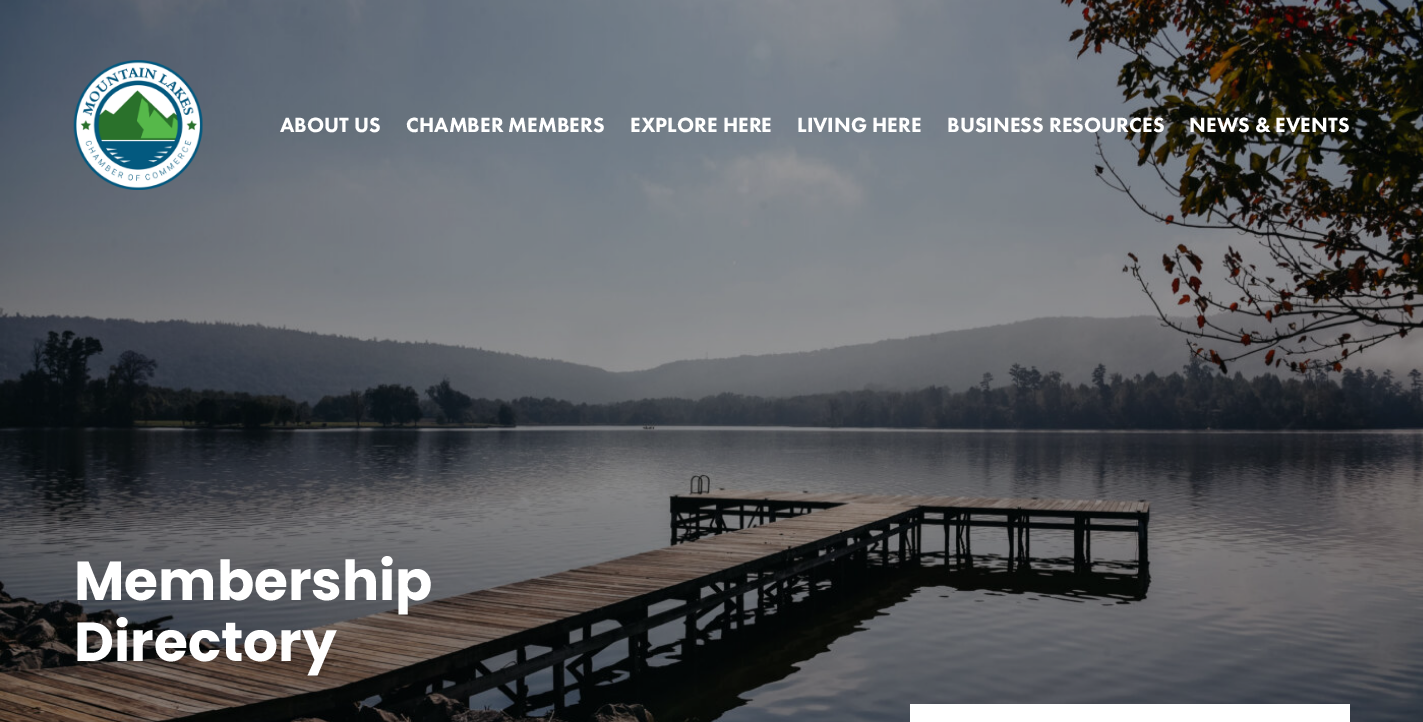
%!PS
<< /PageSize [1423 722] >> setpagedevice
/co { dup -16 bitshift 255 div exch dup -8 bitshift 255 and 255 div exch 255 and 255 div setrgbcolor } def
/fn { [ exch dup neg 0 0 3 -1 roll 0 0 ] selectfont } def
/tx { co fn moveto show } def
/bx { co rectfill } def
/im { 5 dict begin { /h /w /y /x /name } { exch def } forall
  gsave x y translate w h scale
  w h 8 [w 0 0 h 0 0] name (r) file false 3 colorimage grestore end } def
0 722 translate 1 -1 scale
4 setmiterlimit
0 0 1423 722 16#FFFFFF bx
(media/2.raw) 0 0 1423 722 im
(media/1.raw) 73 60 130 130 im
910 704 440 18 16#FFFFFF bx
(ABOUT US) 280 132 /FuturaPT-Black 21.25 16#FFFFFF tx
(CHAMBER MEMBERS) 406 132 /FuturaPT-Black 21.25 16#FFFFFF tx
(EXPLORE HERE) 630 132 /FuturaPT-Black 21.25 16#FFFFFF tx
(LIVING HERE) 797 132 /FuturaPT-Black 21.25 16#FFFFFF tx
(BUSINESS RESOURCES) 947 132 /FuturaPT-Black 21.25 16#FFFFFF tx
(NEWS & EVENTS) 1189 132 /FuturaPT-Black 21.25 16#FFFFFF tx
(Membership) 74 600 /Poppins-Bold 55 16#FFFFFF tx
(Directory) 74 661 /Poppins-Bold 55 16#FFFFFF tx
showpage
